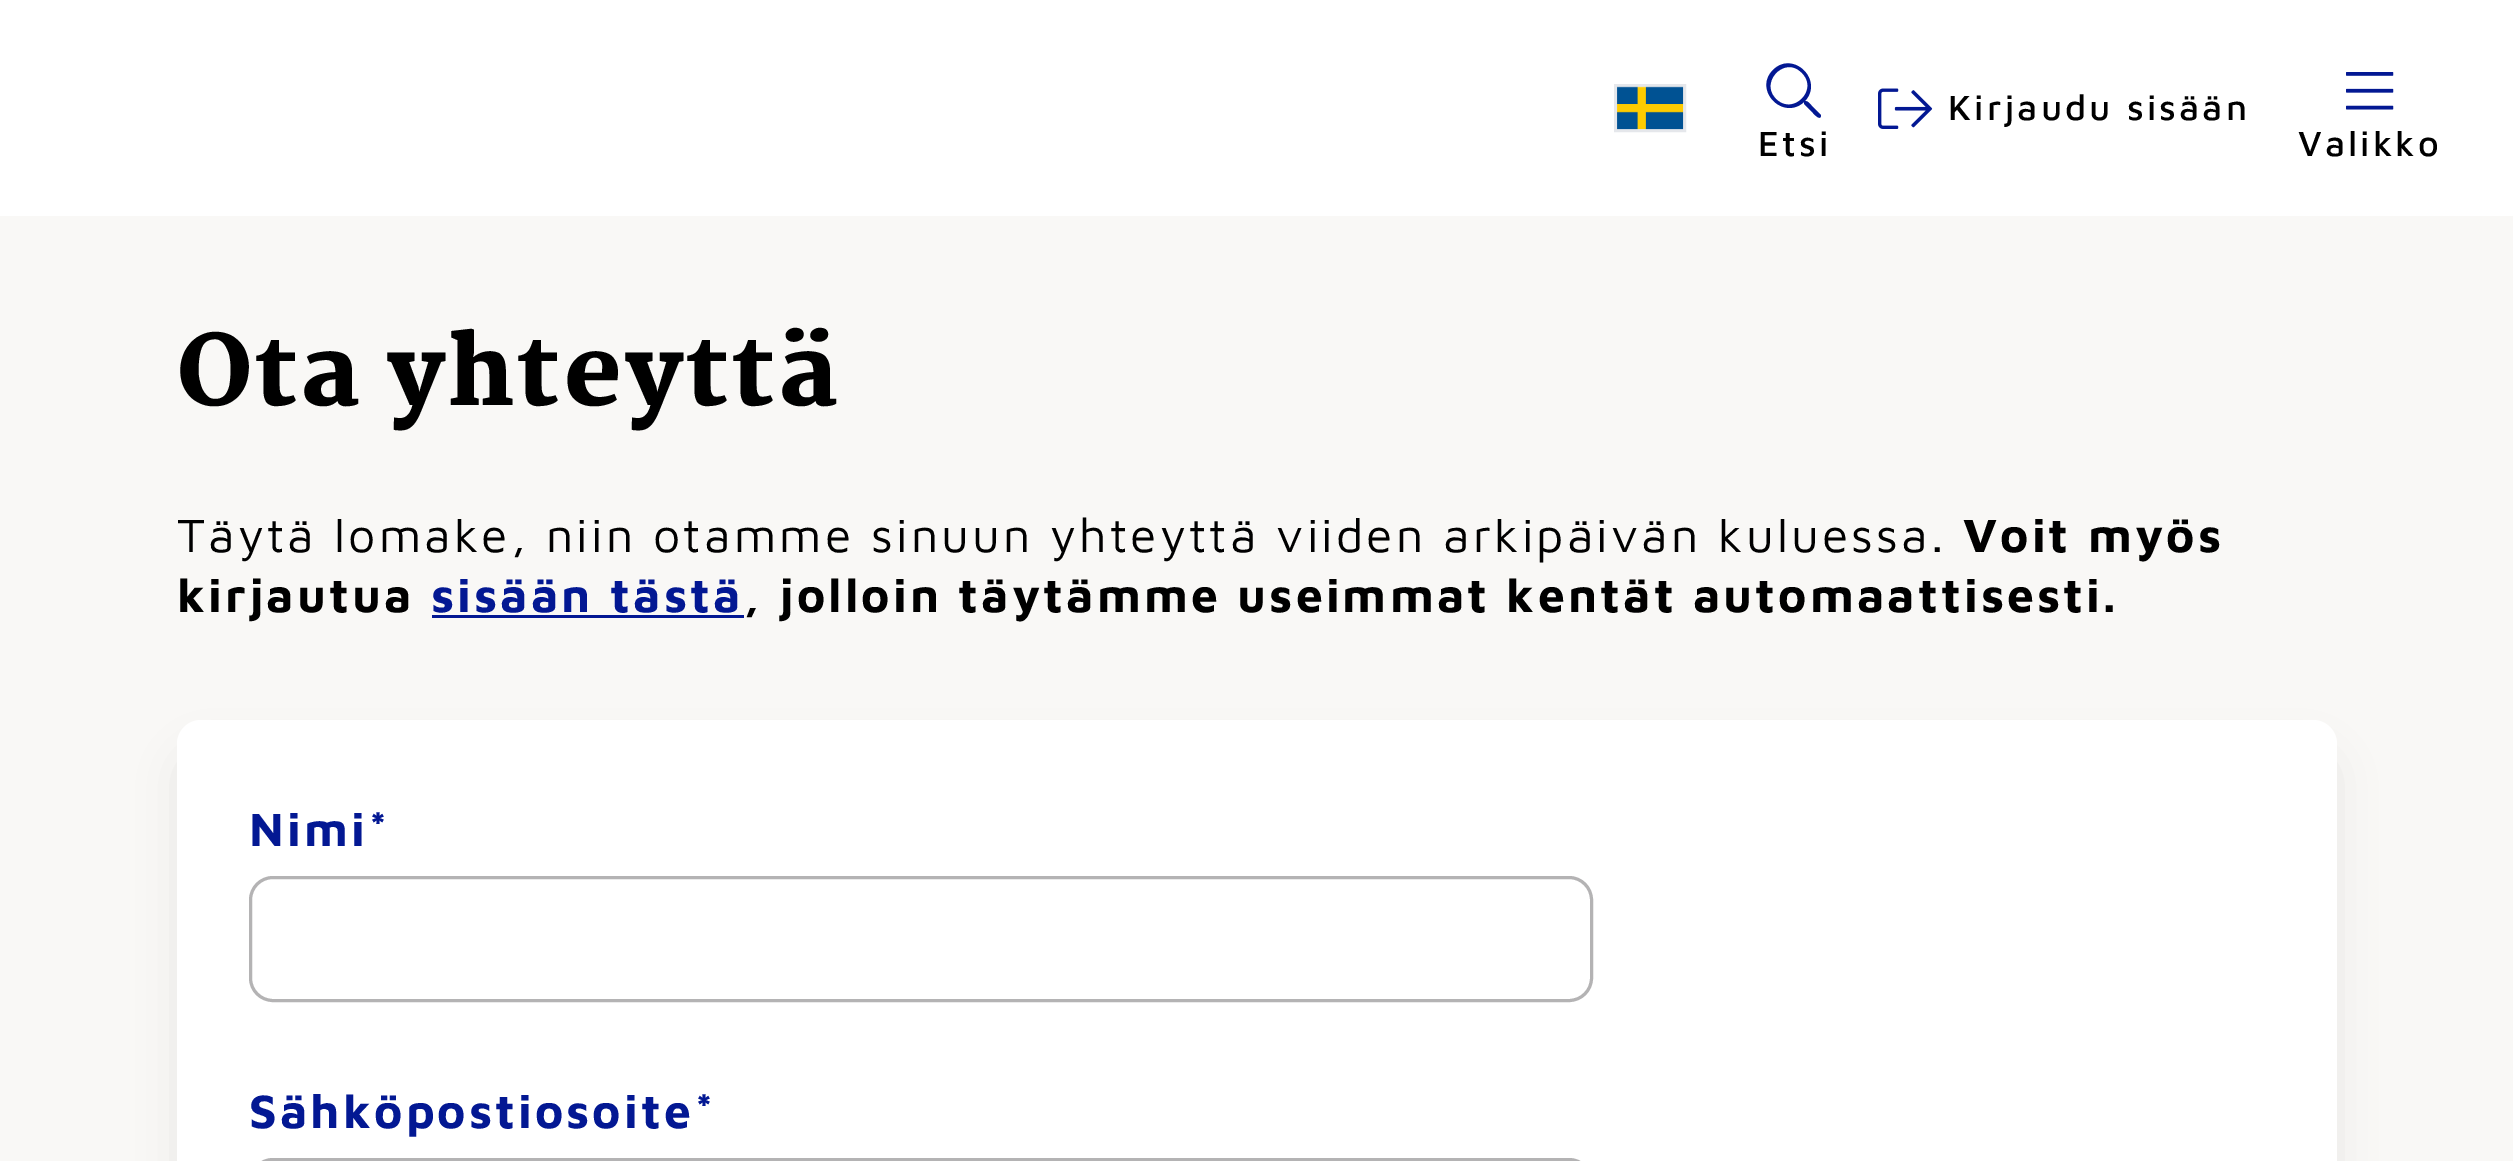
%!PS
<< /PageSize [2513 1161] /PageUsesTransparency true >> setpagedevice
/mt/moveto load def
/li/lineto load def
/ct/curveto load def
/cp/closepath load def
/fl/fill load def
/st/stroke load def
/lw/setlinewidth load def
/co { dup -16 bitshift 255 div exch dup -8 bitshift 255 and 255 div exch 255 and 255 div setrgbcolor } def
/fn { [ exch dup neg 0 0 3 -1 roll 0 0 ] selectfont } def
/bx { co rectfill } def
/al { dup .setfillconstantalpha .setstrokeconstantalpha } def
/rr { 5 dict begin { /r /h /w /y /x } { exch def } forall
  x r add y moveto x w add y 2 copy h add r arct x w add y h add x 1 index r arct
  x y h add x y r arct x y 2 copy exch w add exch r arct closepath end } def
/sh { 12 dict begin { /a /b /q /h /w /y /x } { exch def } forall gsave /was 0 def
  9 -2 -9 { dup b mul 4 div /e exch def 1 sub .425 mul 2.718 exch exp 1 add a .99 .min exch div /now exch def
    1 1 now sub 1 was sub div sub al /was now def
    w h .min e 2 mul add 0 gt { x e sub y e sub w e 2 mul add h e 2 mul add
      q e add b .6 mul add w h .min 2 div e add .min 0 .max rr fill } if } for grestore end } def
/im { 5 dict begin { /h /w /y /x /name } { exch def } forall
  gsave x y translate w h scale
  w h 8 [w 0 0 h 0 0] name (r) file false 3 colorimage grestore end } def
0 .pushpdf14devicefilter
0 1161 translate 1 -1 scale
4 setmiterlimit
0 0 2513 1161 16#F9F8F6 bx
0 0 2513 216 16#FFFFFF bx
16#E5E7EB co
3 lw
1615.5 85.5 69 45 rectstroke
(media/1.raw) 1617 86 67 44 im
(media/2.raw) 1878 88 55 41 im
16#031893 co
1821 115 mt 1821 116 li 1820 121 1814 114 1813 113 ct 1806 106 li 1804 104 1804 104 1804 102 ct 1783 121 1753 90 1773 70 ct 1793 50 1824 80 1805 101 ct 1808 101 1809 103 1812 106 ct cp 1776 99 mt 1793 116 1819 90 1802 73 ct 1785 55 1759 82 1776 99 ct cp fl
(media/3.raw) 2346 72 48 38 im
432 615 312 3 16#031893 bx
16#000000 co
186 759 2142 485 15 22.5 .1 sh
16#FFFFFF co
177 720 2160 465 24 rr fl
16#B4B3B4 co
250.5 877.5 1341 123 22.5 rr st
250.5 1159.5 1341 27 22.5 rr st
/MavenPro-Medium 36 fn
16#000000 co
1948 120 mt 3.1 0 (Kirjaudu sisään) ashow
1758 156 mt 3.1 0 (Etsi) ashow
2298 156 mt 3.1 0 (Valikko) ashow
/Martel-Black 96 fn
177 405 mt 3.1 0 (Ota yhteyttä) ashow
/MavenPro-Regular 48 fn
177 552 mt 3.1 0 (Täytä lomake, niin otamme sinuun yhteyttä viiden arkipäivän kuluessa.) ashow
/MavenPro-Bold 48 fn
1963 552 mt 3.1 0 (Voit myös) ashow
177 612 mt 3.1 0 (kirjautua) ashow
16#031893 co
431 612 mt 3.1 0 (sisään tästä) ashow
16#000000 co
743 612 mt 3.1 0 (, jolloin täytämme useimmat kentät automaattisesti.) ashow
16#031893 co
249 846 mt 3.1 0 (Nimi*) ashow
249 1128 mt 3.1 0 (Sähköpostiosoite*) ashow
.poppdf14devicefilter showpage
